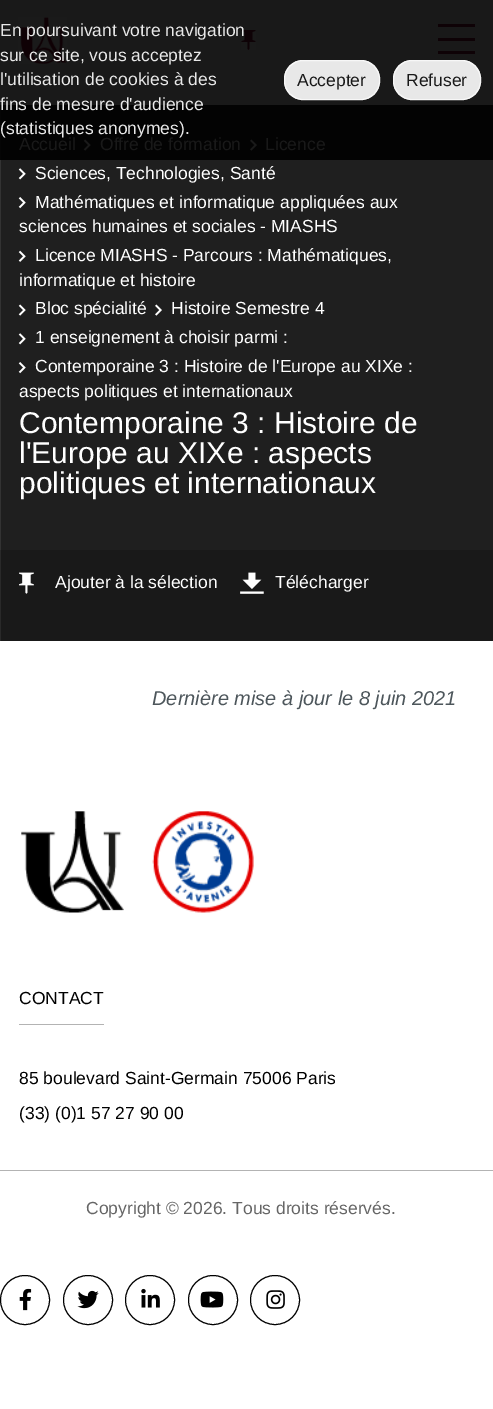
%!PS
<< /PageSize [493 1409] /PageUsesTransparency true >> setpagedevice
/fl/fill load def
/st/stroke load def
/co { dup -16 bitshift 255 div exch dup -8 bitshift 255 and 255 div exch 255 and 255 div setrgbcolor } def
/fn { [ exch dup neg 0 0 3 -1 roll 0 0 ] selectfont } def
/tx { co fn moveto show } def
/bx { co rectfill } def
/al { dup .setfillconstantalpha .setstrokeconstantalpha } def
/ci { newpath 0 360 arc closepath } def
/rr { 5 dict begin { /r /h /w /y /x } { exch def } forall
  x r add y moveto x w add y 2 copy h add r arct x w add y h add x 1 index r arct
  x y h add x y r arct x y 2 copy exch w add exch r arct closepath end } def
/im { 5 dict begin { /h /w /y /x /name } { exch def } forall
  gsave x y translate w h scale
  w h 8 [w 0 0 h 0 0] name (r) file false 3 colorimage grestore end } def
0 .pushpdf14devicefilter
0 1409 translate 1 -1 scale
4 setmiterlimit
0 0 493 1409 16#FFFFFF bx
0 0 493 105 16#191919 bx
(media/1.raw) 18 17 49 47 im
(media/2.raw) 241 30 15 20 im
438 24 37 3 16#0E0206 bx
438 38 37 3 16#0E0206 bx
438 51 37 3 16#0E0206 bx
0.9 al
16#FFFFFF co
284 60 96 40 19 rr fl
16#F9F9F9 co
284.5 60.5 95 39 18.5 rr st
16#FFFFFF co
393 60 88 40 19 rr fl
16#F9F9F9 co
393.5 60.5 87 39 18.5 rr st
1 al
0 160 1 390 16#333333 bx
0 105 1 55 16#050505 bx
0 550 1 91 16#292929 bx
1 160 492 390 16#1F1F1F bx
1 105 492 55 16#030303 bx
1 550 492 91 16#191919 bx
(media/3.raw) 83 139 8 12 im
(media/4.raw) 250 139 7 12 im
(media/5.raw) 18 168 8 12 im
(media/6.raw) 18 197 8 12 im
(media/7.raw) 18 250 8 12 im
(media/8.raw) 18 304 8 12 im
(media/9.raw) 155 304 7 12 im
(media/5.raw) 18 333 8 12 im
(media/6.raw) 18 362 8 12 im
(media/10.raw) 19 572 15 22 im
(media/11.raw) 240 572 24 22 im
0 1170 493 1 16#B3B3B3 bx
(media/12.raw) 21 811 233 102 im
19 1024 85 1 16#B3B3B3 bx
16#000000 co
25 1300 24.5 ci st
(media/13.raw) 19 1288 13 23 im
88 1300 24.5 ci st
(media/14.raw) 77 1290 22 19 im
150 1300 24.5 ci st
(media/15.raw) 141 1288 19 20 im
213 1300 24.5 ci st
(media/16.raw) 200 1291 24 17 im
275 1300 24.5 ci st
(media/17.raw) 266 1290 19 19 im
(En poursuivant votre navigation) 0 36 /LiberationSans-Regular 17.5 16#E8E8E8 tx
(sur ce site, vous acceptez) 0 61 /LiberationSans-Regular 17.5 16#E8E8E8 tx
(l'utilisation de cookies à des) 0 85 /LiberationSans-Regular 17.5 16#E8E8E8 tx
(fins de mesure d'audience) 0 110 /LiberationSans-Regular 17.5 16#E8E8E8 tx
(\(statistiques anonymes\).) 0 134 /LiberationSans-Regular 17.5 16#E8E8E8 tx
(Accepter) 297 86 /LiberationSans-Regular 17.5 16#191919 tx
(Refuser) 406 86 /LiberationSans-Regular 17.5 16#191919 tx
(Accueil) 19 150 /LiberationSans-Regular 17.5 16#191919 tx
(Offre de formation) 100 150 /LiberationSans-Regular 17.5 16#191919 tx
(Licence) 265 150 /LiberationSans-Regular 17.5 16#191919 tx
(Sciences, Technologies, Santé) 35 179 /LiberationSans-Regular 17.5 16#FFFFFF tx
(Mathématiques et informatique appliquées aux) 35 208 /LiberationSans-Regular 17.5 16#FFFFFF tx
(sciences humaines et sociales - MIASHS) 19 232 /LiberationSans-Regular 17.5 16#FFFFFF tx
(Licence MIASHS - Parcours : Mathématiques,) 35 261 /LiberationSans-Regular 17.5 16#FFFFFF tx
(informatique et histoire) 19 286 /LiberationSans-Regular 17.5 16#FFFFFF tx
(Bloc spécialité) 35 314 /LiberationSans-Regular 17.5 16#FFFFFF tx
(Histoire Semestre 4) 171 314 /LiberationSans-Regular 17.5 16#FFFFFF tx
(1 enseignement à choisir parmi :) 35 343 /LiberationSans-Regular 17.5 16#FFFFFF tx
(Contemporaine 3 : Histoire de l'Europe au XIXe :) 35 372 /LiberationSans-Regular 17.5 16#FFFFFF tx
(aspects politiques et internationaux) 19 397 /LiberationSans-Regular 17.5 16#FFFFFF tx
(Contemporaine 3 : Histoire de) 19 433 /LiberationSans-Regular 30 16#FFFFFF tx
(l'Europe au XIXe : aspects) 19 463 /LiberationSans-Regular 30 16#FFFFFF tx
(politiques et internationaux) 19 493 /LiberationSans-Regular 30 16#FFFFFF tx
(Ajouter à la sélection) 55 588 /LiberationSans-Regular 17.5 16#FFFFFF tx
(Télécharger) 275 588 /LiberationSans-Regular 17.5 16#FFFFFF tx
(Dernière mise à jour le 8 juin 2021) 152 705 /LiberationSans-Italic 20 16#4D565B tx
(CONTACT) 19 1004 /LiberationSans-Regular 17.5 16#000000 tx
(85 boulevard Saint-Germain 75006 Paris) 19 1084 /LiberationSans-Regular 17.5 16#000000 tx
(\(33\) \(0\)1 57 27 90 00) 19 1119 /LiberationSans-Regular 17.5 16#000000 tx
(Copyright © 2026. Tous droits réservés.) 86 1214 /LiberationSans-Regular 17.5 16#666666 tx
.poppdf14devicefilter showpage
